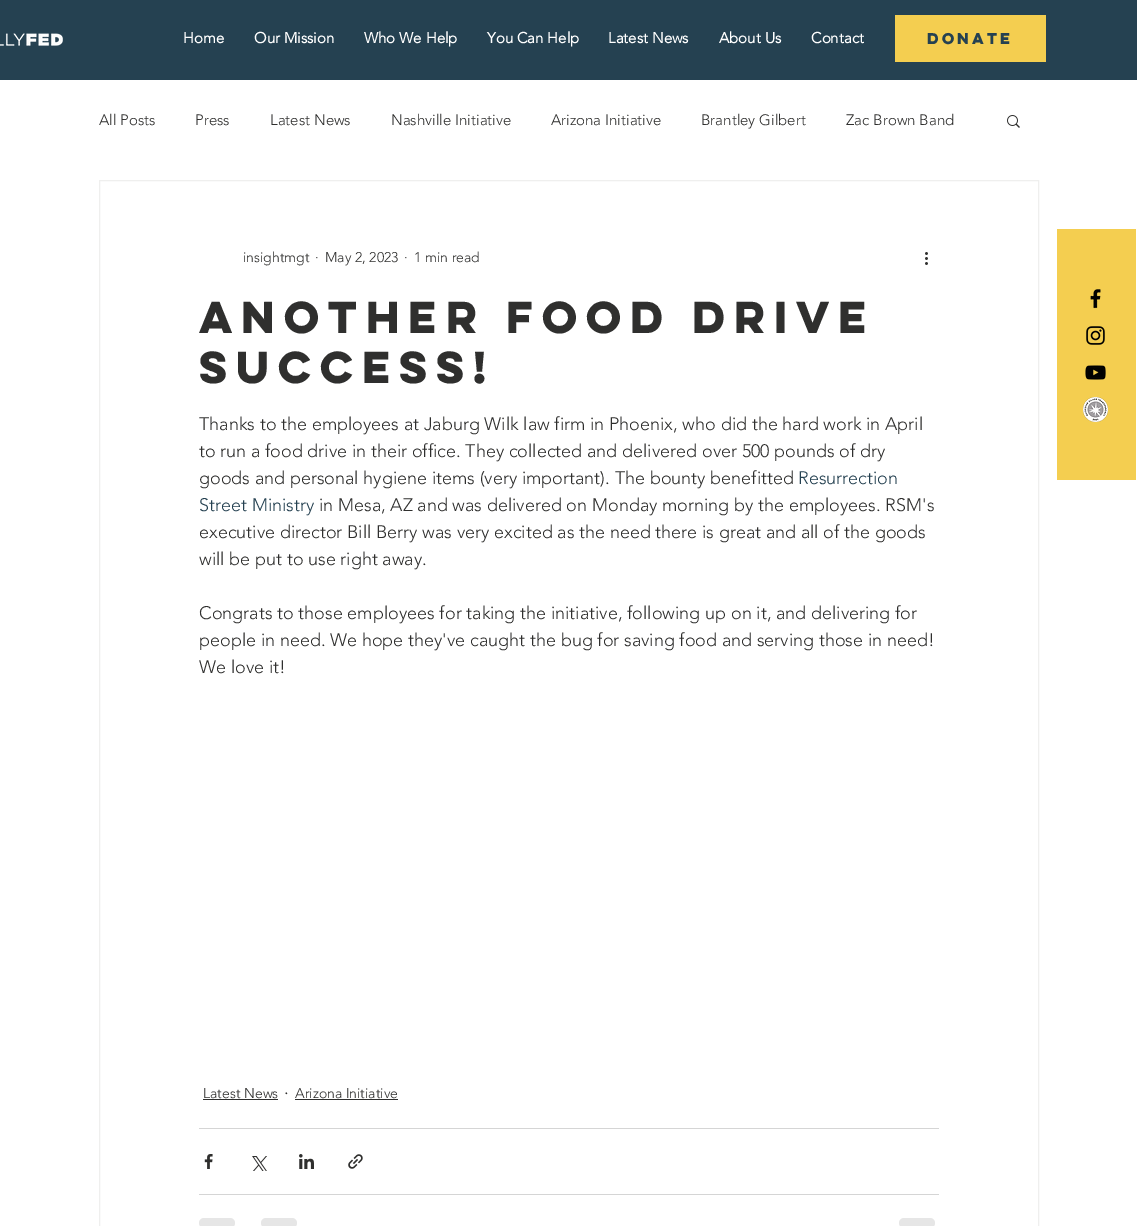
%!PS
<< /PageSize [1137 1226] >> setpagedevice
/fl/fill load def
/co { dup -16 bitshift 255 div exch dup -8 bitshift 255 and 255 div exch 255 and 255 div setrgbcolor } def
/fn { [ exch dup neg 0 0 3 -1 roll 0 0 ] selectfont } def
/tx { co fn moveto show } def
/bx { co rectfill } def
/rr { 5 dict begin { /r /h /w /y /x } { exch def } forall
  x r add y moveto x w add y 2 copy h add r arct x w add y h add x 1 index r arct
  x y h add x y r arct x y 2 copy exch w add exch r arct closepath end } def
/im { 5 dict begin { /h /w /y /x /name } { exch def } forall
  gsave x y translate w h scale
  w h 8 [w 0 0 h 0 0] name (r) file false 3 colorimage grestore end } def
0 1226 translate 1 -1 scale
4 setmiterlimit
0 0 1137 1226 16#FFFFFF bx
0 0 1137 80 16#254151 bx
(media/1.raw) 0 33 63 13 im
895 15 151 47 16#F4CE50 bx
(media/2.raw) 1007 115 13 13 im
16#EFEFEE co
99.5 180.5 939 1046 rectstroke
(media/3.raw) 925 252 3 13 im
203 1099 75 1 16#2F2F2E bx
295 1099 103 1 16#2F2F2E bx
199 1128 740 1 16#D5D5D5 bx
(media/4.raw) 204 1154 9 15 im
(media/5.raw) 252 1156 15 15 im
(media/6.raw) 299 1154 15 15 im
(media/7.raw) 348 1154 15 15 im
199 1194 740 1 16#D5D5D5 bx
16#E6E6E6 co
199 1218 36 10 5 rr fl
261 1218 36 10 5 rr fl
899 1218 36 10 5 rr fl
1057 229 79 251 16#F4CE50 bx
(media/8.raw) 1090 289 11 20 im
(media/9.raw) 1086 326 19 19 im
(media/10.raw) 1085 365 21 15 im
(media/11.raw) 1083 397 25 25 im
(Home) 183 43 /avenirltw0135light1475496-Bold 15 16#FFFFFF tx
(Our Mission) 254 43 /avenirltw0135light1475496-Bold 15 16#FFFFFF tx
(Who We Help) 364 43 /avenirltw0135light1475496-Bold 15 16#FFFFFF tx
(You Can Help) 487 43 /avenirltw0135light1475496-Bold 15 16#FFFFFF tx
(Latest News) 608 43 /avenirltw0135light1475496-Bold 15 16#FFFFFF tx
(About Us) 719 43 /avenirltw0135light1475496-Bold 15 16#FFFFFF tx
(Contact) 811 43 /avenirltw0135light1475496-Bold 15 16#FFFFFF tx
(DONATE) 927 44 /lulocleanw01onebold-Bold 14 16#254151 tx
(All Posts) 99 125 /avenirltw0135light1475496-Light 15 16#2F2F2E tx
(Press) 195 125 /avenirltw0135light1475496-Light 15 16#2F2F2E tx
(Latest News) 270 125 /avenirltw0135light1475496-Light 15 16#2F2F2E tx
(Nashville Initiative) 391 125 /avenirltw0135light1475496-Light 15 16#2F2F2E tx
(Arizona Initiative) 551 125 /avenirltw0135light1475496-Light 15 16#2F2F2E tx
(Brantley Gilbert) 701 125 /avenirltw0135light1475496-Light 15 16#2F2F2E tx
(Zac Brown Band) 846 125 /avenirltw0135light1475496-Light 15 16#2F2F2E tx
(insightmgt) 243 262 /avenirltw0135light1475496-Light 14 16#2F2F2E tx
(·) 315 262 /avenirltw0135light1475496-Light 14 16#2F2F2E tx
(May 2, 2023) 325 262 /avenirltw0135light1475496-Light 14 16#2F2F2E tx
(·) 404 262 /avenirltw0135light1475496-Light 14 16#2F2F2E tx
(1 min read) 414 262 /avenirltw0135light1475496-Light 14 16#2F2F2E tx
(Another Food Drive) 199 333 /lulocleanw01onebold-Bold 40 16#2F2F2E tx
(Success!) 199 383 /lulocleanw01onebold-Bold 40 16#2F2F2E tx
(Thanks to the employees at Jaburg Wilk law firm in Phoenix, who did the hard work in April) 199 430 /avenirltw0135light1475496-Light 18 16#2F2F2E tx
(to run a food drive in their office. They collected and delivered over 500 pounds of dry) 199 457 /avenirltw0135light1475496-Light 18 16#2F2F2E tx
(goods and personal hygiene items \(very important\). The bounty benefitted) 199 484 /avenirltw0135light1475496-Light 18 16#2F2F2E tx
(Resurrection) 798 484 /avenirltw0135light1475496-Light 18 16#254151 tx
(Street Ministry) 199 511 /avenirltw0135light1475496-Light 18 16#254151 tx
(in Mesa, AZ and was delivered on Monday morning by the employees. RSM's) 319 511 /avenirltw0135light1475496-Light 18 16#2F2F2E tx
(executive director Bill Berry was very excited as the need there is great and all of the goods) 199 538 /avenirltw0135light1475496-Light 18 16#2F2F2E tx
(will be put to use right away.) 199 565 /avenirltw0135light1475496-Light 18 16#2F2F2E tx
(Congrats to those employees for taking the initiative, following up on it, and delivering for) 199 619 /avenirltw0135light1475496-Light 18 16#2F2F2E tx
(people in need. We hope they've caught the bug for saving food and serving those in need!) 199 646 /avenirltw0135light1475496-Light 18 16#2F2F2E tx
(We love it!) 199 673 /avenirltw0135light1475496-Light 18 16#2F2F2E tx
(Latest News) 203 1098 /avenirltw0135light1475496-Light 14 16#2F2F2E tx
(·) 284 1099 /avenirltw0135light1475496-Light 18 16#2F2F2E tx
(Arizona Initiative) 295 1098 /avenirltw0135light1475496-Light 14 16#2F2F2E tx
showpage
